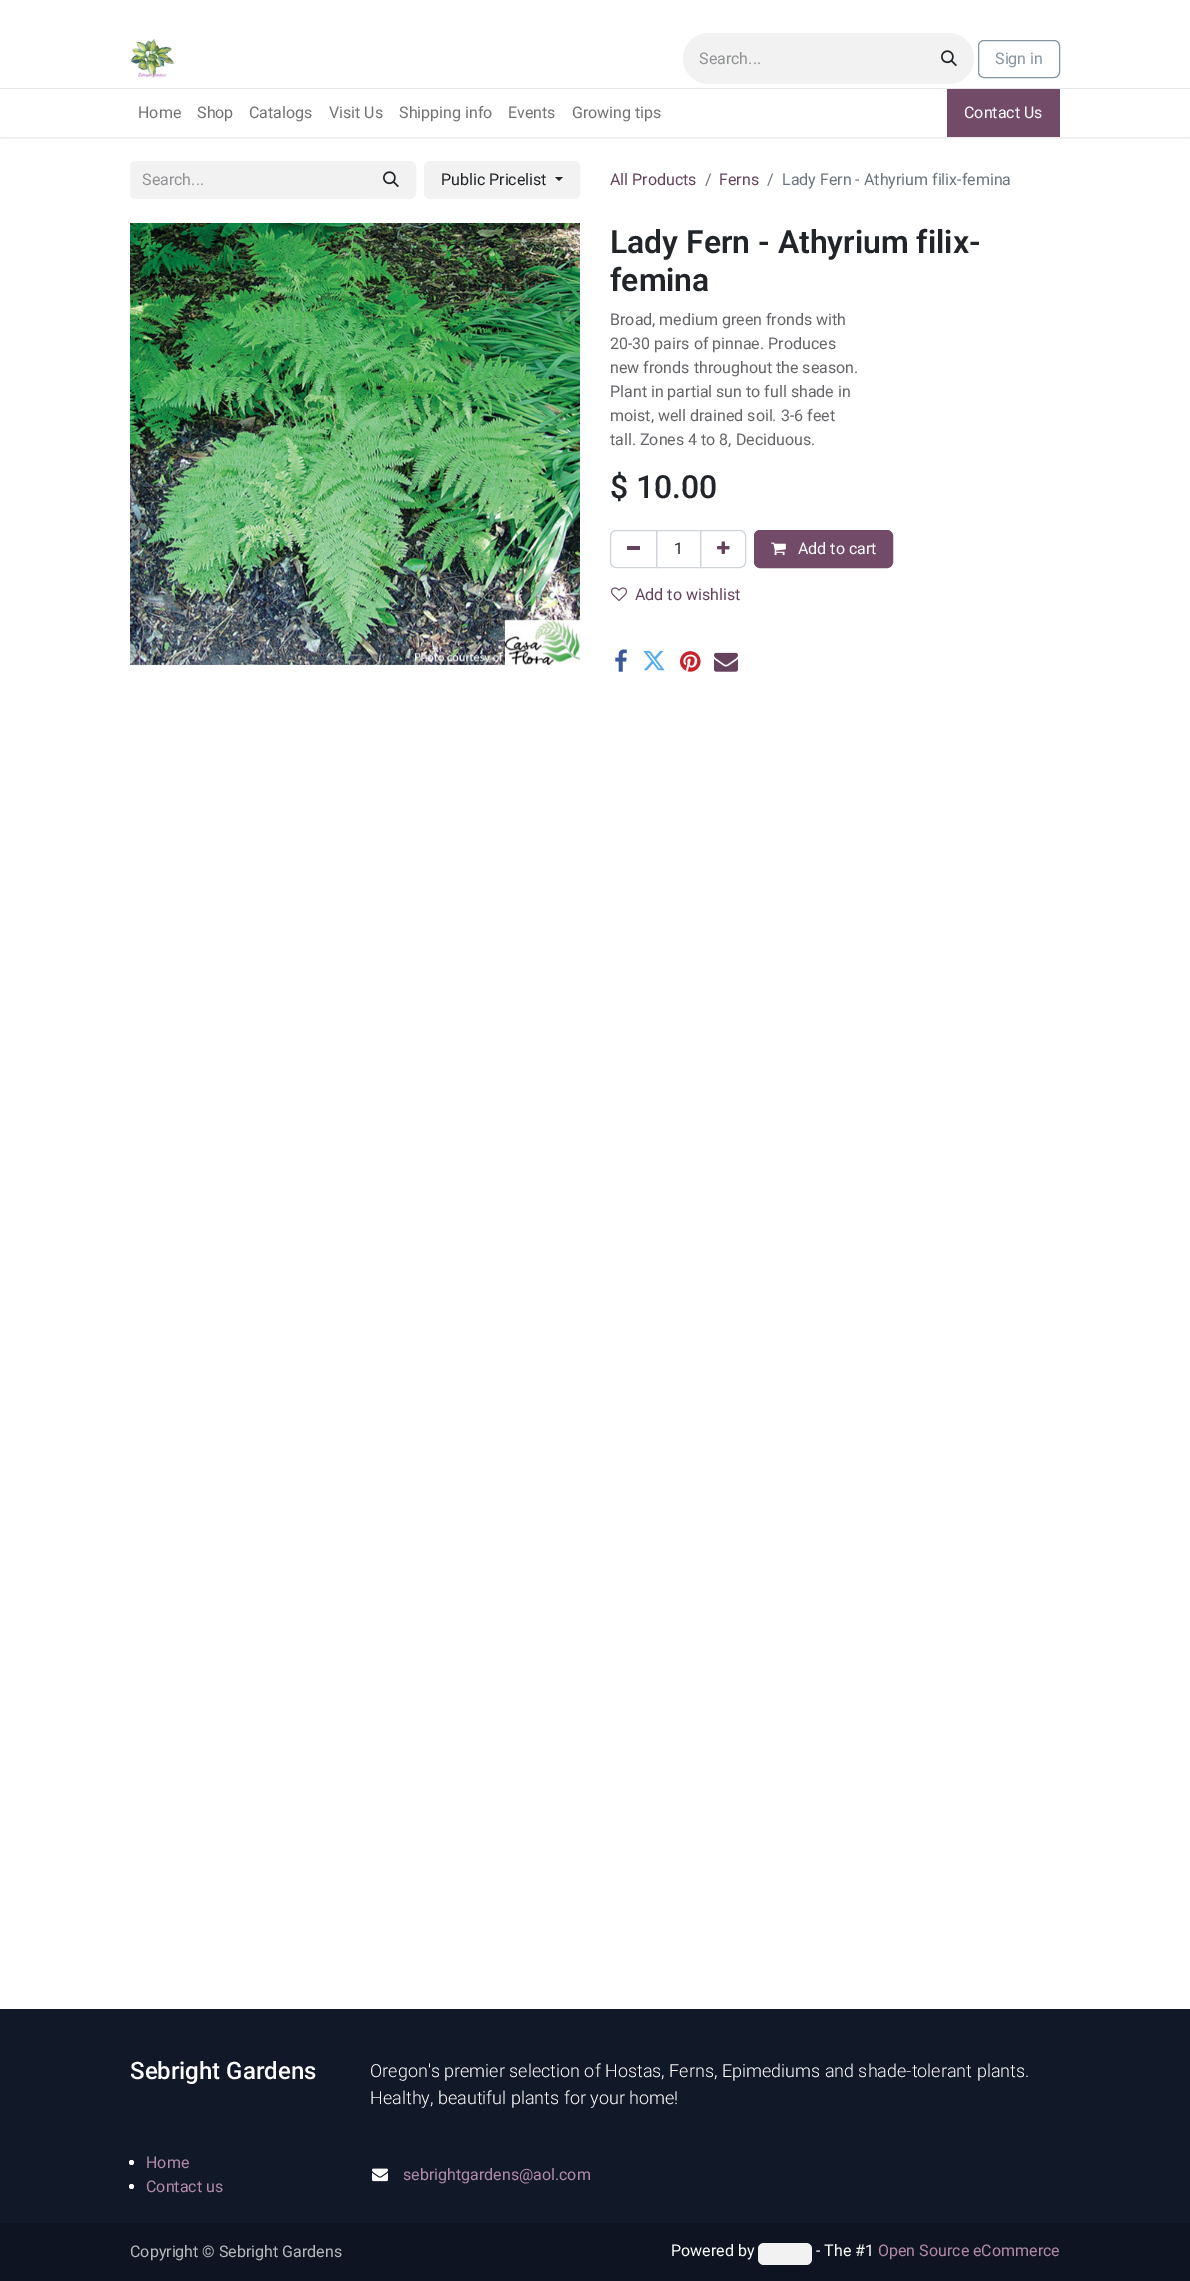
%!PS
<< /PageSize [1190 2281] /PageUsesTransparency true >> setpagedevice
/mt/moveto load def
/li/lineto load def
/ct/curveto load def
/cp/closepath load def
/fl/fill load def
/st/stroke load def
/gs/gsave load def
/gr/grestore load def
/co { dup -16 bitshift 255 div exch dup -8 bitshift 255 and 255 div exch 255 and 255 div setrgbcolor } def
/fn { [ exch dup neg 0 0 3 -1 roll 0 0 ] selectfont } def
/tx { co fn moveto show } def
/bx { co rectfill } def
/al { dup .setfillconstantalpha .setstrokeconstantalpha } def
/ci { newpath 0 360 arc closepath } def
/rr { 5 dict begin { /r /h /w /y /x } { exch def } forall
  x r add y moveto x w add y 2 copy h add r arct x w add y h add x 1 index r arct
  x y h add x y r arct x y 2 copy exch w add exch r arct closepath end } def
/sh { 12 dict begin { /a /b /q /h /w /y /x } { exch def } forall gsave /was 0 def
  9 -2 -9 { dup b mul 4 div /e exch def 1 sub .425 mul 2.718 exch exp 1 add a .99 .min exch div /now exch def
    1 1 now sub 1 was sub div sub al /was now def
    w h .min e 2 mul add 0 gt { x e sub y e sub w e 2 mul add h e 2 mul add
      q e add b .6 mul add w h .min 2 div e add .min 0 .max rr fill } if } for grestore end } def
/im { 5 dict begin { /h /w /y /x /name } { exch def } forall
  gsave x y translate w h scale
  w h 8 [w 0 0 h 0 0] name (r) file false 3 colorimage grestore end } def
0 .pushpdf14devicefilter
0 2281 translate 1 -1 scale
4 setmiterlimit
0 0 1190 2281 16#FFFFFF bx
gs
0 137 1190 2 rectclip
16#000000 co
0 1 1190 137 0 1.5 .1 sh
gr
(media/1.raw) 130 39 45 39 im
16#F3F2F2 co
708.5 33 mt 925 33 li 925 84 li 708.5 84 li 694.5 84 683 72.5 683 58.5 ct 683 44.5 694.5 33 708.5 33 ct cp fl
924 33 mt 948.5 33 li 962.5 33 974 44.5 974 58.5 ct 974 72.5 962.5 84 948.5 84 ct 924 84 li cp fl
(media/2.raw) 941 50 16 17 im
16#8595A2 co
978.5 40.5 81 37 5.5 rr st
0 88 1190 1 16#E6E6E6 bx
947 89 113 48 16#714B67 bx
16#F3F2F2 co
136 161 mt 367 161 li 367 199 li 136 199 li 132.5 199 130 196.5 130 193 ct 130 167 li 130 163.5 132.5 161 136 161 ct cp fl
366.5 161.5 mt 410 161.5 li 413 161.5 415.5 164 415.5 167 ct 415.5 193 li 415.5 196 413 198.5 410 198.5 ct 366.5 198.5 li cp gs fl gr
st
(media/2.raw) 383 171 16 17 im
424.5 161.5 155 37 5.5 rr gs fl gr
st
16#212529 co
555 177 mt 563 177 li 559 181 li cp fl
(media/3.raw) 130 223 450 442 im
16#CED4DA co
656.5 530.5 44 37 rectstroke
616 530.5 mt 656.5 530.5 li 656.5 567.5 li 616 567.5 li 613 567.5 610.5 565 610.5 562 ct 610.5 536 li 610.5 533 613 530.5 616 530.5 ct cp st
627 546 13 4 16#65435C bx
16#CED4DA co
700.5 530.5 mt 740 530.5 li 743 530.5 745.5 533 745.5 536 ct 745.5 562 li 745.5 565 743 567.5 740 567.5 ct 700.5 567.5 li cp st
(media/4.raw) 717 541 13 13 im
16#714B67 co
754.5 530.5 138 37 5.5 rr gs fl gr
st
(media/5.raw) 771 542 15 14 im
(media/6.raw) 611 587 16 15 im
(media/7.raw) 615 649 12 23 im
(media/8.raw) 643 650 22 21 im
(media/9.raw) 680 651 21 21 im
(media/10.raw) 714 652 24 20 im
0 2009 1190 214 16#111827 bx
16#FFFFFF co
131.5 2162.5 2.5 ci fl
131.5 2186.5 2.5 ci fl
(media/11.raw) 372 2168 16 14 im
0 2223 1190 58 16#0E1421 bx
16#F3F2F2 co
758 2243 54 22 6 rr fl
(Search...) 699 64 /Roboto-Regular 16 16#909294 tx
(Sign in) 995 64 /Roboto-Regular 16 16#8595A2 tx
(Home) 138 118 /Roboto-Regular 16 16#737373 tx
(Shop) 197 118 /Roboto-Regular 16 16#737373 tx
(Catalogs) 249 118 /Roboto-Regular 16 16#737373 tx
(Visit Us) 329 118 /Roboto-Regular 16 16#737373 tx
(Shipping info) 399 118 /Roboto-Regular 16 16#737373 tx
(Events) 508 118 /Roboto-Regular 16 16#737373 tx
(Growing tips) 572 118 /Roboto-Regular 16 16#737373 tx
(Contact Us) 964 118 /Roboto-Regular 16 16#FFFFFF tx
(Search...) 142 185 /Roboto-Regular 16 16#909294 tx
(Public Pricelist) 441 185 /Roboto-Regular 16 16#212529 tx
(All Products) 610 185 /Roboto-Regular 16 16#65435C tx
(/) 705 185 /Roboto-Regular 16 16#6C757D tx
(Ferns) 719 185 /Roboto-Regular 16 16#65435C tx
(/) 767 185 /Roboto-Regular 16 16#6C757D tx
(Lady Fern - Athyrium filix-femina) 782 185 /Roboto-Regular 16 16#6C757D tx
(Lady Fern - Athyrium filix-) 610 253 /Roboto-SemiBold 31.9 16#212529 tx
(femina) 610 291 /Roboto-SemiBold 31.9 16#212529 tx
(Broad, medium green fronds with) 610 325 /Roboto-Regular 16 16#646669 tx
(20-30 pairs of pinnae. Produces) 610 349 /Roboto-Regular 16 16#646669 tx
(new fronds throughout the season.) 610 373 /Roboto-Regular 16 16#646669 tx
(Plant in partial sun to full shade in) 610 397 /Roboto-Regular 16 16#646669 tx
(moist, well drained soil. 3-6 feet) 610 421 /Roboto-Regular 16 16#646669 tx
(tall. Zones 4 to 8, Deciduous.) 610 445 /Roboto-Regular 16 16#646669 tx
($ 10.00) 610 498 /Roboto-Medium 31.9 16#212529 tx
(1) 674 554 /Roboto-Regular 16 16#212529 tx
(Add to cart) 798 554 /Roboto-Regular 16 16#FFFFFF tx
(Add to wishlist) 635 600 /Roboto-Regular 16 16#65435C tx
(Sebright Gardens) 130 2079 /Roboto-Medium 24 16#FFFFFF tx
(Oregon's premier selection of Hostas, Ferns, Epimediums and shade-tolerant plants.) 370 2077 /Roboto-Light 18 16#FFFFFF tx
(Healthy, beautiful plants for your home!) 370 2104 /Roboto-Light 18 16#FFFFFF tx
(Home) 146 2168 /Roboto-Regular 16 16#B18AA7 tx
(Contact us) 146 2192 /Roboto-Regular 16 16#B18AA7 tx
(sebrightgardens@aol.com) 403 2180 /Roboto-Regular 16 16#B18AA7 tx
(Copyright © Sebright Gardens) 130 2257 /Roboto-Regular 16 16#B7B9BC tx
(Powered by) 671 2256 /Roboto-Regular 16 16#FFFFFF tx
(- The #1) 816 2256 /Roboto-Regular 16 16#FFFFFF tx
(Open Source eCommerce) 878 2256 /Roboto-Regular 16 16#B18AA7 tx
.poppdf14devicefilter showpage
